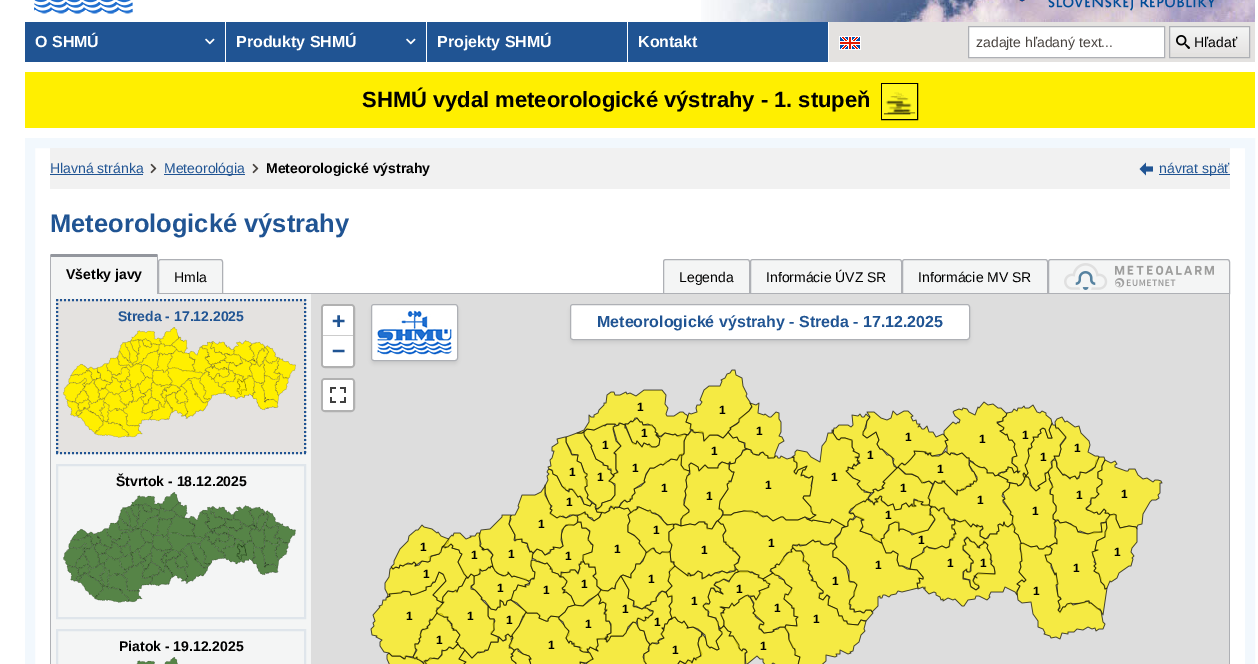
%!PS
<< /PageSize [1258 664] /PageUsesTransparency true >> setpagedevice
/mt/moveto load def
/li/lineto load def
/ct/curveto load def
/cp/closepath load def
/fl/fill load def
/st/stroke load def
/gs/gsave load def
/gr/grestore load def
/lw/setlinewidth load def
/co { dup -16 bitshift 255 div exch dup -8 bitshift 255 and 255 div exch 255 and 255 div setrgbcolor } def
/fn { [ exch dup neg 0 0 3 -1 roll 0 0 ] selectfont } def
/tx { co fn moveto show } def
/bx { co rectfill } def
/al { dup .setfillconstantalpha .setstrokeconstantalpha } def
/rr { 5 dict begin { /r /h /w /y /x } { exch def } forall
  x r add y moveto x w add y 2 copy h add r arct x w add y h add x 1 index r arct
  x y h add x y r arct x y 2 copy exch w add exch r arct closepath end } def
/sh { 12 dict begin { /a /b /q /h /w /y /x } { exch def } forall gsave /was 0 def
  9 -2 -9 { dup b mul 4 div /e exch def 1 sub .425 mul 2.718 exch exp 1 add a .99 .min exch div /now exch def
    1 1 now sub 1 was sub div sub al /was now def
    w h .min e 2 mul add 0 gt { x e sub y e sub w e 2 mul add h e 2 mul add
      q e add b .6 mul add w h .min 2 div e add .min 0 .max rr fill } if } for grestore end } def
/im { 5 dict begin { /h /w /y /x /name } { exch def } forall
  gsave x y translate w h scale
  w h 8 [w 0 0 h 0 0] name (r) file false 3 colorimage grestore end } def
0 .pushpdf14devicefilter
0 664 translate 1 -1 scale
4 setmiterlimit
0 0 1258 664 16#FFFFFF bx
(media/1.raw) 34 0 99 14 im
(media/2.raw) 701 0 554 22 im
(media/3.raw) 1019 0 195 11 im
829 22 426 40 16#E4E2E0 bx
25 22 200 40 16#205493 bx
(media/4.raw) 205 38 10 7 im
226 22 200 40 16#205493 bx
(media/4.raw) 406 38 10 7 im
427 22 200 40 16#205493 bx
628 22 200 40 16#205493 bx
(media/5.raw) 839 36 22 14 im
16#FFFFFF co
968.5 26.5 mt 1164.5 26.5 li 1164.5 57.5 li 968.5 57.5 li cp gs fl gr
16#AEB0B5 co
st
gs 1170 27 mt 1249 27 li 1249 53 li 1170 53 li cp clip newpath
<< /ShadingType 2 /ColorSpace /DeviceRGB /Coords [1210 27 1210 57] /Extend [true true] /Function << /FunctionType 2 /Domain [0 1] /C0 [.957 .961 .961] /C1 [.894 .886 .878] /N 1 >> >> shfill gr
1169.5 26.5 80 31 rectstroke
(media/6.raw) 1176 35 14 14 im
25 72 1230 56 16#FFEF00 bx
16#000000 co
881.5 83.5 36 36 rectstroke
(media/7.raw) 882 84 35 35 im
16#F2F8FD co
10 lw
30 143 1220 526 rectstroke
50 148 1180 41 16#F1F1F1 bx
50 174 93 1 16#205493 bx
(media/8.raw) 150 163 7 11 im
164 174 81 1 16#205493 bx
(media/8.raw) 252 163 7 11 im
(media/9.raw) 1139 162 14 14 im
1159 174 71 1 16#205493 bx
223 293 440 1 16#AEB0B5 bx
51 257 106 37 16#F4F5F5 bx
16#93969D co
53 254 mt 52 254 51 254 50 255 ct 51 257 li 157 257 li 158 255 li 157 254 156 254 155 254 ct cp fl
16#AEB0B5 co
157 294 mt 158 294 li 158 257 li 157.5 255 li 157 257 li cp fl
50 294 mt 51 294 li 51 257 li 50.5 255 li 50 257 li cp fl
gs
161 259 mt 220 259 li 221.5 259 223 260.5 223 262 ct 223 294 li 158 294 li 158 262 li 158 260.5 159.5 259 161 259 ct cp clip newpath
158 260 65 33 16#F4F5F5 bx
gr
1 lw
161 259.5 mt 220 259.5 li 221.5 259.5 222.5 260.5 222.5 262 ct 222.5 293.5 li 158.5 293.5 li 158.5 262 li 158.5 260.5 159.5 259.5 161 259.5 ct cp st
gs
666 259 mt 747 259 li 748.5 259 750 260.5 750 262 ct 750 294 li 663 294 li 663 262 li 663 260.5 664.5 259 666 259 ct cp clip newpath
663 260 87 33 16#F4F5F5 bx
gr
666 259.5 mt 747 259.5 li 748.5 259.5 749.5 260.5 749.5 262 ct 749.5 293.5 li 663.5 293.5 li 663.5 262 li 663.5 260.5 664.5 259.5 666 259.5 ct cp st
gs
753 259 mt 899 259 li 900.5 259 902 260.5 902 262 ct 902 294 li 750 294 li 750 262 li 750 260.5 751.5 259 753 259 ct cp clip newpath
750 260 152 33 16#F4F5F5 bx
gr
753 259.5 mt 899 259.5 li 900.5 259.5 901.5 260.5 901.5 262 ct 901.5 293.5 li 750.5 293.5 li 750.5 262 li 750.5 260.5 751.5 259.5 753 259.5 ct cp st
gs
905 259 mt 1045 259 li 1046.5 259 1048 260.5 1048 262 ct 1048 294 li 902 294 li 902 262 li 902 260.5 903.5 259 905 259 ct cp clip newpath
902 260 146 33 16#F4F5F5 bx
gr
905 259.5 mt 1045 259.5 li 1046.5 259.5 1047.5 260.5 1047.5 262 ct 1047.5 293.5 li 902.5 293.5 li 902.5 262 li 902.5 260.5 903.5 259.5 905 259.5 ct cp st
gs
1051 259 mt 1227 259 li 1228.5 259 1230 260.5 1230 262 ct 1230 294 li 1048 294 li 1048 262 li 1048 260.5 1049.5 259 1051 259 ct cp clip newpath
1048 260 182 33 16#F4F5F5 bx
gr
1051 259.5 mt 1227 259.5 li 1228.5 259.5 1229.5 260.5 1229.5 262 ct 1229.5 293.5 li 1048.5 293.5 li 1048.5 262 li 1048.5 260.5 1049.5 259.5 1051 259.5 ct cp st
(media/10.raw) 1064 263 150 27 im
51 294 260 370 16#F4F5F5 bx
1229 294 1 370 16#AEB0B5 bx
50 294 1 370 16#AEB0B5 bx
56 299 250 155 16#E4E2E0 bx
16#205493 co
2 lw
[2 2] 0 setdash
56 300 mt 306 300 li st
305 299 mt 305 454 li st
56 453 mt 306 453 li st
57 299 mt 57 454 li st
(media/11.raw) 63 327 233 111 im
16#DFE5EB co
[] 0 setdash
57 465 248 153 rectstroke
(media/12.raw) 63 492 233 111 im
57 630 248 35 rectstroke
(media/13.raw) 136 657 42 7 im
311 294 918 370 16#DDDDDD bx
16#B1B1B1 co
322 305 32 62 3 rr st
16#FFFFFF co
325 306 mt 351 306 li 352 306 353 307 353 308 ct 353 336 li 323 336 li 323 308 li 323 307 324 306 325 306 ct cp fl
323 335 30 1 16#CCCCCC bx
16#FFFFFF co
323 336 mt 353 336 li 353 364 li 353 365 352 366 351 366 ct 325 366 li 324 366 323 365 323 364 ct cp fl
16#B1B1B1 co
322 379 32 32 3 rr st
16#FFFFFF co
323 380 30 30 2 rr fl
(media/14.raw) 330 387 16 16 im
(media/16.raw) 370 369 793 295 im
16#494440 co
371 307 87 57 3 1.5 .1 sh
16#FFFFFF co
371.5 304.5 86 56 2.5 rr gs fl gr
16#AEB0B5 co
1 lw
st
(media/15.raw) 377 310 75 45 im
16#494440 co
570 307 400 36 3 1.5 .1 sh
16#FFFFFF co
570.5 304.5 399 35 2.5 rr gs fl gr
16#AEB0B5 co
st
(O SHMÚ) 35 47 /LiberationSans-Bold 16 16#FFFFFF tx
(Produkty SHMÚ) 236 47 /LiberationSans-Bold 16 16#FFFFFF tx
(Projekty SHMÚ) 437 47 /LiberationSans-Bold 16 16#FFFFFF tx
(Kontakt) 638 47 /LiberationSans-Bold 16 16#FFFFFF tx
(zadajte hľadaný text...) 976 47 /LiberationSans-Regular 14 16#494440 tx
(Hľadať) 1194 47 /LiberationSans-Regular 14 16#000000 tx
(SHMÚ vydal meteorologické výstrahy - 1. stupeň) 362 107 /LiberationSans-Bold 22 16#000000 tx
(Hlavná stránka) 50 173 /LiberationSans-Regular 14 16#205493 tx
(Meteorológia) 164 173 /LiberationSans-Regular 14 16#205493 tx
(Meteorologické výstrahy) 266 173 /LiberationSans-Bold 14 16#000000 tx
(návrat späť) 1159 173 /LiberationSans-Regular 14 16#205493 tx
(Meteorologické výstrahy) 50 232 /LiberationSans-Bold 25.5 16#205493 tx
(Všetky javy) 66 279 /LiberationSans-Bold 14 16#000000 tx
(Hmla) 174 282 /LiberationSans-Regular 14 16#000000 tx
(Legenda) 679 282 /LiberationSans-Regular 14 16#000000 tx
(Informácie ÚVZ SR) 766 282 /LiberationSans-Regular 14 16#000000 tx
(Informácie MV SR) 918 282 /LiberationSans-Regular 14 16#000000 tx
(Streda - 17.12.2025) 118 321 /LiberationSans-Bold 14 16#205493 tx
(Štvrtok - 18.12.2025) 116 486 /LiberationSans-Bold 14 16#000000 tx
(Piatok - 19.12.2025) 119 651 /LiberationSans-Bold 14 16#000000 tx
(+) 332 328 /DejaVuSansMono-Bold 22 16#205493 tx
(−) 332 358 /DejaVuSansMono-Bold 22 16#205493 tx
(Meteorologické výstrahy - Streda - 17.12.2025) 597 327 /LiberationSans-Bold 16 16#205493 tx
(1) 637 411 /LiberationSans-Bold 12 16#000000 tx
(1) 719 414 /LiberationSans-Bold 12 16#000000 tx
(1) 641 437 /LiberationSans-Bold 12 16#000000 tx
(1) 756 435 /LiberationSans-Bold 12 16#000000 tx
(1) 905 441 /LiberationSans-Bold 12 16#000000 tx
(1) 979 443 /LiberationSans-Bold 12 16#000000 tx
(1) 1022 439 /LiberationSans-Bold 12 16#000000 tx
(1) 602 449 /LiberationSans-Bold 12 16#000000 tx
(1) 711 455 /LiberationSans-Bold 12 16#000000 tx
(1) 867 459 /LiberationSans-Bold 12 16#000000 tx
(1) 1040 461 /LiberationSans-Bold 12 16#000000 tx
(1) 1074 452 /LiberationSans-Bold 12 16#000000 tx
(1) 569 476 /LiberationSans-Bold 12 16#000000 tx
(1) 597 481 /LiberationSans-Bold 12 16#000000 tx
(1) 632 472 /LiberationSans-Bold 12 16#000000 tx
(1) 831 481 /LiberationSans-Bold 12 16#000000 tx
(1) 937 473 /LiberationSans-Bold 12 16#000000 tx
(1) 661 492 /LiberationSans-Bold 12 16#000000 tx
(1) 765 489 /LiberationSans-Bold 12 16#000000 tx
(1) 900 492 /LiberationSans-Bold 12 16#000000 tx
(1) 566 506 /LiberationSans-Bold 12 16#000000 tx
(1) 706 500 /LiberationSans-Bold 12 16#000000 tx
(1) 977 504 /LiberationSans-Bold 12 16#000000 tx
(1) 1076 499 /LiberationSans-Bold 12 16#000000 tx
(1) 1121 498 /LiberationSans-Bold 12 16#000000 tx
(1) 885 519 /LiberationSans-Bold 12 16#000000 tx
(1) 1032 515 /LiberationSans-Bold 12 16#000000 tx
(1) 538 528 /LiberationSans-Bold 12 16#000000 tx
(1) 653 534 /LiberationSans-Bold 12 16#000000 tx
(1) 420 551 /LiberationSans-Bold 12 16#000000 tx
(1) 471 559 /LiberationSans-Bold 12 16#000000 tx
(1) 508 558 /LiberationSans-Bold 12 16#000000 tx
(1) 565 560 /LiberationSans-Bold 12 16#000000 tx
(1) 614 553 /LiberationSans-Bold 12 16#000000 tx
(1) 701 554 /LiberationSans-Bold 12 16#000000 tx
(1) 768 547 /LiberationSans-Bold 12 16#000000 tx
(1) 918 544 /LiberationSans-Bold 12 16#000000 tx
(1) 1114 556 /LiberationSans-Bold 12 16#000000 tx
(1) 875 569 /LiberationSans-Bold 12 16#000000 tx
(1) 947 567 /LiberationSans-Bold 12 16#000000 tx
(1) 980 567 /LiberationSans-Bold 12 16#000000 tx
(1) 1073 572 /LiberationSans-Bold 12 16#000000 tx
(1) 423 578 /LiberationSans-Bold 12 16#000000 tx
(1) 497 592 /LiberationSans-Bold 12 16#000000 tx
(1) 543 594 /LiberationSans-Bold 12 16#000000 tx
(1) 581 588 /LiberationSans-Bold 12 16#000000 tx
(1) 648 583 /LiberationSans-Bold 12 16#000000 tx
(1) 736 593 /LiberationSans-Bold 12 16#000000 tx
(1) 832 585 /LiberationSans-Bold 12 16#000000 tx
(1) 1033 595 /LiberationSans-Bold 12 16#000000 tx
(1) 691 605 /LiberationSans-Bold 12 16#000000 tx
(1) 622 613 /LiberationSans-Bold 12 16#000000 tx
(1) 774 612 /LiberationSans-Bold 12 16#000000 tx
(1) 406 620 /LiberationSans-Bold 12 16#000000 tx
(1) 467 620 /LiberationSans-Bold 12 16#000000 tx
(1) 506 624 /LiberationSans-Bold 12 16#000000 tx
(1) 585 628 /LiberationSans-Bold 12 16#000000 tx
(1) 654 626 /LiberationSans-Bold 12 16#000000 tx
(1) 813 623 /LiberationSans-Bold 12 16#000000 tx
(1) 436 644 /LiberationSans-Bold 12 16#000000 tx
(1) 548 649 /LiberationSans-Bold 12 16#000000 tx
(1) 672 654 /LiberationSans-Bold 12 16#000000 tx
(1) 760 650 /LiberationSans-Bold 12 16#000000 tx
.poppdf14devicefilter showpage
